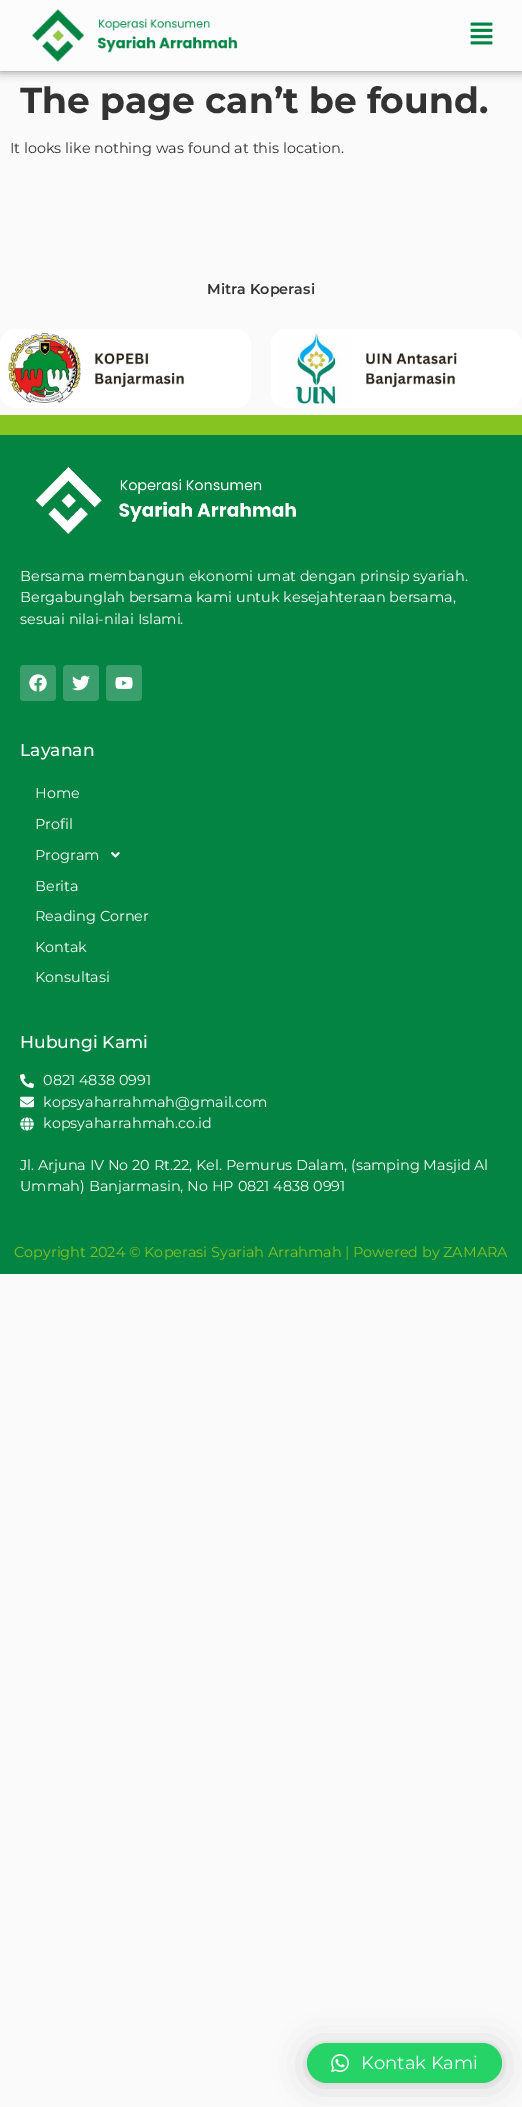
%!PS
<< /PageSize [522 2107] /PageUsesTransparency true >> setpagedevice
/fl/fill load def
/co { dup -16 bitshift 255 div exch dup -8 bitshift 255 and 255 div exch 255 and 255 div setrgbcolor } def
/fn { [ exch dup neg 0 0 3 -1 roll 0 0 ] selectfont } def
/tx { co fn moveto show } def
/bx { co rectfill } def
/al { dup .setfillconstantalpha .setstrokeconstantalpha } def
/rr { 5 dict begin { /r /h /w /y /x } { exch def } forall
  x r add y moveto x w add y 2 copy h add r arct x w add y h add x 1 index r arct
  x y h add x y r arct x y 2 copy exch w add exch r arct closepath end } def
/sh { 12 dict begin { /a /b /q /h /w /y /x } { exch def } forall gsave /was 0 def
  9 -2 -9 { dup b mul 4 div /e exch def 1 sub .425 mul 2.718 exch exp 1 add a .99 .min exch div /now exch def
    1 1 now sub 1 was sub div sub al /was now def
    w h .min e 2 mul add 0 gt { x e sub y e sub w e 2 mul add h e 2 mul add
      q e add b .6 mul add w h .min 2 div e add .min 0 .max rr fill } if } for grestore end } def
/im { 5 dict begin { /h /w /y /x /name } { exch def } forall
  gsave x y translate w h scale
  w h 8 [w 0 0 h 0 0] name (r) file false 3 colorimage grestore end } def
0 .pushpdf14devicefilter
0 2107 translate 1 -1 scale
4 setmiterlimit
0 0 522 2107 16#FAFAFA bx
16#000000 co
0 0 522 71 0 5 .5 sh
0 0 522 71 16#FCFCFC bx
(media/1.raw) 31 9 207 53 im
(media/2.raw) 470 22 23 23 im
(media/3.raw) 0 329 251 79 im
(media/4.raw) 271 329 251 79 im
0 415 522 20 16#86C421 bx
0 435 522 839 16#038442 bx
(media/5.raw) 35 467 261 67 im
16#3A9F6C co
20 665 36 36 4 rr fl
(media/6.raw) 29 674 18 18 im
63 665 36 36 4 rr fl
(media/7.raw) 72 675 18 16 im
106 665 36 36 4 rr fl
(media/8.raw) 115 677 18 12 im
(media/9.raw) 111 852 9 6 im
(media/10.raw) 20 1074 14 14 im
(media/11.raw) 20 1096 14 12 im
(media/12.raw) 20 1117 14 14 im
16#000000 co
307 2045 195 40 20 16 .16 sh
307 2044 195 40 20 3 .06 sh
16#25D366 co
307 2043 195 40 20 rr fl
(media/13.raw) 331 2054 18 19 im
(The page can’t be found.) 20 113 /Montserrat-Bold 36 16#333333 tx
(It looks like nothing was found at this location.) 10 153 /Montserrat-Regular 14.4 16#333333 tx
(Mitra Koperasi) 207 294 /Montserrat-SemiBold 14.4 16#333333 tx
(Bersama membangun ekonomi umat dengan prinsip syariah.) 20 581 /Montserrat-Regular 14.4 16#FFFFFF tx
(Bergabunglah bersama kami untuk kesejahteraan bersama,) 20 602 /Montserrat-Regular 14.4 16#FFFFFF tx
(sesuai nilai-nilai Islami.) 20 624 /Montserrat-Regular 14.4 16#FFFFFF tx
(Layanan) 20 756 /Montserrat-Medium 17.25 16#FFFFFF tx
(Home) 35 798 /Montserrat-Regular 14.4 16#FFFFFF tx
(Profil) 35 829 /Montserrat-Regular 14.4 16#FFFFFF tx
(Program) 35 860 /Montserrat-Regular 14.4 16#FFFFFF tx
(Berita) 35 891 /Montserrat-Regular 14.4 16#FFFFFF tx
(Reading Corner) 35 921 /Montserrat-Regular 14.4 16#FFFFFF tx
(Kontak) 35 952 /Montserrat-Regular 14.4 16#FFFFFF tx
(Konsultasi) 35 982 /Montserrat-Regular 14.4 16#FFFFFF tx
(Hubungi Kami) 20 1048 /Montserrat-Medium 17.25 16#FFFFFF tx
(0821 4838 0991) 43 1085 /Montserrat-Regular 14.4 16#FFFFFF tx
(kopsyaharrahmah@gmail.com) 43 1107 /Montserrat-Regular 14.4 16#FFFFFF tx
(kopsyaharrahmah.co.id) 43 1128 /Montserrat-Regular 14.4 16#FFFFFF tx
(Jl. Arjuna IV No 20 Rt.22, Kel. Pemurus Dalam, \(samping Masjid Al) 20 1170 /Montserrat-Regular 14.4 16#FFFFFF tx
(Ummah\) Banjarmasin, No HP 0821 4838 0991) 20 1191 /Montserrat-Regular 14.4 16#FFFFFF tx
(Copyright 2024 © Koperasi Syariah Arrahmah | Powered by ZAMARA) 14 1257 /Montserrat-Regular 14.4 16#86C421 tx
(Kontak Kami) 361 2069 /Montserrat-Regular 18 16#FFFFFF tx
.poppdf14devicefilter showpage
